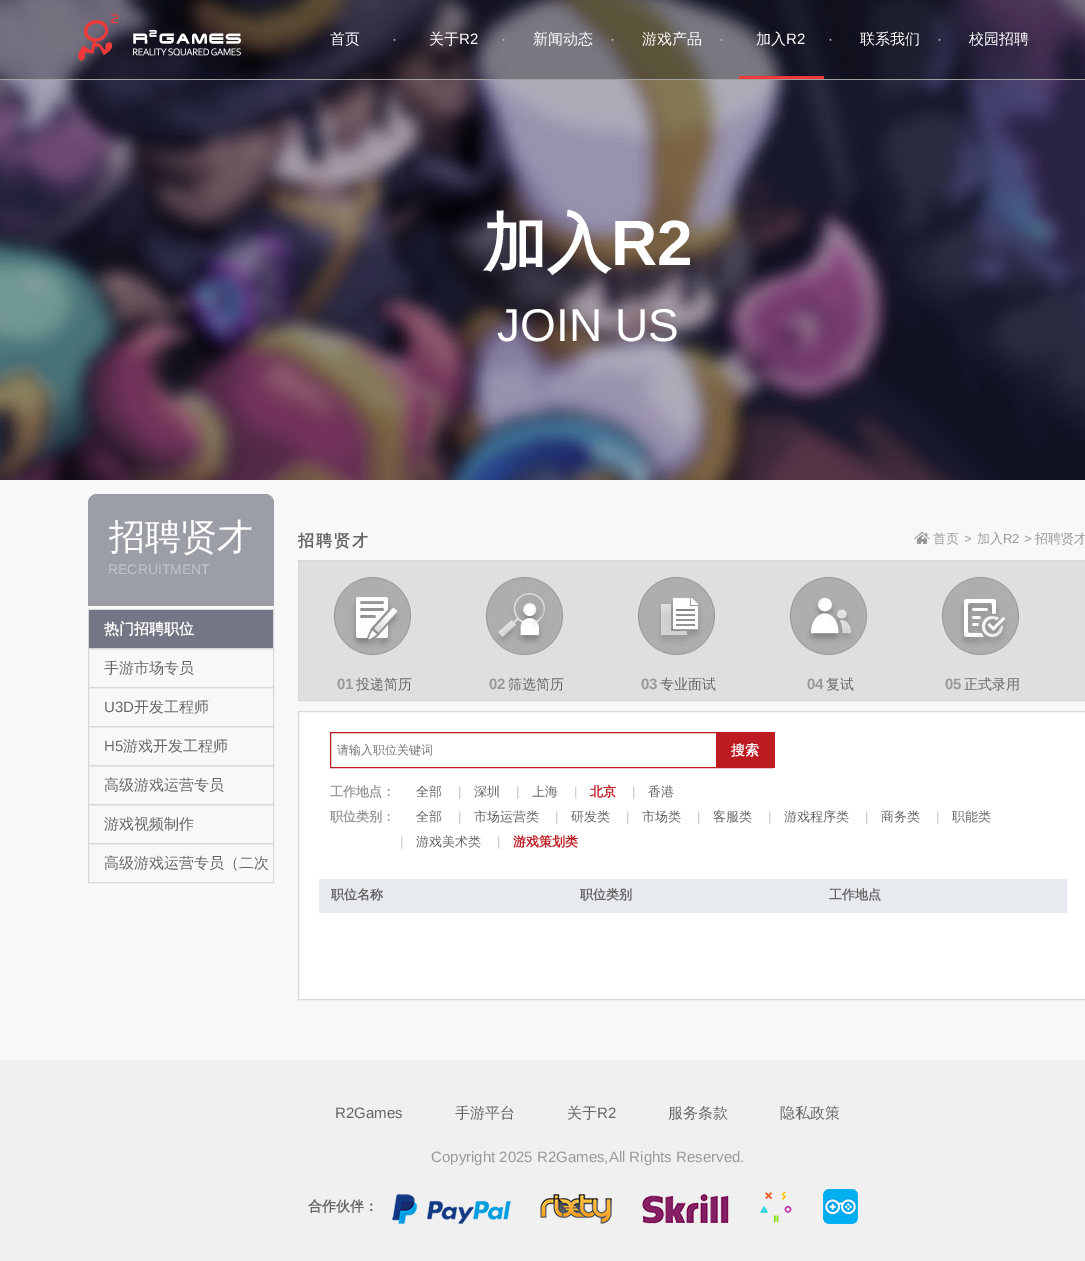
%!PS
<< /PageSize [1085 1261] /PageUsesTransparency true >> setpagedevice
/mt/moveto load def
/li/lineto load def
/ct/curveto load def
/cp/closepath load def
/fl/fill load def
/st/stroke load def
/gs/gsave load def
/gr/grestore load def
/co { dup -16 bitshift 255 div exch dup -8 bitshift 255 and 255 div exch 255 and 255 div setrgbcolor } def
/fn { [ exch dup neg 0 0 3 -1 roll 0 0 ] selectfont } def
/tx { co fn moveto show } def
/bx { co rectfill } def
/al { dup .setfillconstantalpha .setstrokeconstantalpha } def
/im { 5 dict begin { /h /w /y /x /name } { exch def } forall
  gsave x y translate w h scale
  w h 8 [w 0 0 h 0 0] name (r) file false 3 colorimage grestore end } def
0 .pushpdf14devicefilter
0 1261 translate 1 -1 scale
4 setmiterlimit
0 0 1085 1261 16#F0F0F0 bx
0 480 1085 580 16#F8F8F8 bx
(media/2.raw) 0 0 1085 480 im
0.3 al
0 0 1085 79 16#000000 bx
1 al
0 79 1085 1 16#A0A0A0 bx
(media/1.raw) 78 14 163 47 im
739 76 85 3 16#F23939 bx
16#9C9EA7 co
97 494 mt 265 494 li 270 494 274 498 274 503 ct 274 606 li 88 606 li 88 503 li 88 498 92 494 97 494 ct cp fl
16#D8D8D8 co
88.5 609.5 185 39 rectstroke
89 610 184 38 16#737684 bx
16#D8D8D8 co
88.5 648.5 185 39 rectstroke
88.5 687.5 185 39 rectstroke
88.5 726.5 185 39 rectstroke
88.5 765.5 185 39 rectstroke
88.5 804.5 185 39 rectstroke
88.5 843.5 185 39 rectstroke
(media/3.raw) 914 532 16 12 im
16#DFDFDF co
298.5 560.5 mt 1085.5 560.5 li 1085.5 700.5 li 298.5 700.5 li cp gs fl gr
16#D8D8D8 co
st
(media/4.raw) 334 577 77 78 im
(media/5.raw) 486 577 77 78 im
(media/6.raw) 638 577 77 78 im
(media/7.raw) 790 577 77 78 im
(media/8.raw) 942 577 77 78 im
16#FFFFFF co
298.5 711.5 mt 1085.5 711.5 li 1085.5 999.5 li 298.5 999.5 li cp gs fl gr
16#D8D8D8 co
st
16#BC1B21 co
330.5 732.5 442 35 rectstroke
716 732 59 36 16#BC1B21 bx
319 879 748 34 16#E7EAEE bx
(media/9.raw) 392 1194 119 30 im
(media/10.raw) 540 1194 72 30 im
(media/11.raw) 642 1194 87 30 im
(media/12.raw) 760 1191 32 32 im
(media/13.raw) 823 1189 35 35 im
(首页) 330 44 /WenQuanYiZenHei-Medium 15 16#FFFFFF tx
(·) 392 44 /LiberationSans-Regular 15 16#BFBFBF tx
(关于) 429 44 /WenQuanYiZenHei-Medium 15 16#FFFFFF tx
(R2) 459 44 /LiberationSans-Regular 15 16#FFFFFF tx
(·) 501 44 /LiberationSans-Regular 15 16#BFBFBF tx
(新闻动态) 533 44 /WenQuanYiZenHei-Medium 15 16#FFFFFF tx
(·) 610 44 /LiberationSans-Regular 15 16#BFBFBF tx
(游戏产品) 642 44 /WenQuanYiZenHei-Medium 15 16#FFFFFF tx
(·) 719 44 /LiberationSans-Regular 15 16#BFBFBF tx
(加入) 756 44 /WenQuanYiZenHei-Medium 15 16#FFFFFF tx
(R2) 786 44 /LiberationSans-Regular 15 16#FFFFFF tx
(·) 828 44 /LiberationSans-Regular 15 16#BFBFBF tx
(联系我们) 860 44 /WenQuanYiZenHei-Medium 15 16#FFFFFF tx
(·) 937 44 /LiberationSans-Regular 15 16#BFBFBF tx
(校园招聘) 969 44 /WenQuanYiZenHei-Medium 15 16#FFFFFF tx
(加入) 483 265 /WenQuanYiZenHei-Bold 64 16#FFFFFF tx
(R2) 611 265 /LiberationSans-Bold 64 16#FFFFFF tx
(JOIN US) 497 341 /LiberationSans-Regular 46 16#FFFFFF tx
(招聘贤才) 109 549 /WenQuanYiZenHei-Medium 36 16#FFFFFF tx
(RECRUITMENT) 108 574 /LiberationSans-Regular 14 16#C2C3C8 tx
(热门招聘职位) 104 634 /WenQuanYiZenHei-Bold 15 16#FFFFFF tx
(手游市场专员) 104 673 /WenQuanYiZenHei-Medium 15 16#666666 tx
(U3D) 104 712 /LiberationSans-Regular 15 16#666666 tx
(开发工程师) 134 712 /WenQuanYiZenHei-Medium 15 16#666666 tx
(H5) 104 751 /LiberationSans-Regular 15 16#666666 tx
(游戏开发工程师) 123 751 /WenQuanYiZenHei-Medium 15 16#666666 tx
(高级游戏运营专员) 104 790 /WenQuanYiZenHei-Medium 15 16#666666 tx
(游戏视频制作) 104 829 /WenQuanYiZenHei-Medium 15 16#666666 tx
(高级游戏运营专员（二次) 104 868 /WenQuanYiZenHei-Medium 15 16#666666 tx
/WenQuanYiZenHei-Bold 16 fn
298 546 mt 2 0 (招聘贤才) ashow
(首页) 933 543 /WenQuanYiZenHei-Medium 13 16#999999 tx
(>) 964 543 /LiberationSans-Regular 13 16#999999 tx
(加入) 977 543 /WenQuanYiZenHei-Medium 13 16#999999 tx
(R2) 1003 543 /LiberationSans-Regular 13 16#999999 tx
(>) 1024 543 /LiberationSans-Regular 13 16#999999 tx
(招聘贤才) 1035 543 /WenQuanYiZenHei-Medium 13 16#999999 tx
(01) 337 689 /LiberationSans-Bold 15 16#999999 tx
(投递简历) 356 689 /WenQuanYiZenHei-Medium 14 16#666666 tx
(02) 489 689 /LiberationSans-Bold 15 16#999999 tx
(筛选简历) 508 689 /WenQuanYiZenHei-Medium 14 16#666666 tx
(03) 641 689 /LiberationSans-Bold 15 16#999999 tx
(专业面试) 660 689 /WenQuanYiZenHei-Medium 14 16#666666 tx
(04) 807 689 /LiberationSans-Bold 15 16#999999 tx
(复试) 826 689 /WenQuanYiZenHei-Medium 14 16#666666 tx
(05) 945 689 /LiberationSans-Bold 15 16#999999 tx
(正式录用) 964 689 /WenQuanYiZenHei-Medium 14 16#666666 tx
(请输入职位关键词) 337 754 /WenQuanYiZenHei-Medium 12 16#757575 tx
(搜索) 731 755 /WenQuanYiZenHei-Bold 14 16#FFFFFF tx
(工作地点：) 330 796 /WenQuanYiZenHei-Bold 13 16#999999 tx
(全部) 416 796 /WenQuanYiZenHei-Medium 13 16#666666 tx
(|) 458 796 /LiberationSans-Regular 13 16#BFBFBF tx
(深圳) 474 796 /WenQuanYiZenHei-Medium 13 16#666666 tx
(|) 516 796 /LiberationSans-Regular 13 16#BFBFBF tx
(上海) 532 796 /WenQuanYiZenHei-Medium 13 16#666666 tx
(|) 574 796 /LiberationSans-Regular 13 16#BFBFBF tx
(北京) 590 796 /WenQuanYiZenHei-Bold 13 16#BC1B21 tx
(|) 632 796 /LiberationSans-Regular 13 16#BFBFBF tx
(香港) 648 796 /WenQuanYiZenHei-Medium 13 16#666666 tx
gs
330 804 737 50 rectclip
(职位类别：) 330 821 /WenQuanYiZenHei-Bold 13 16#999999 tx
gr
(全部) 416 821 /WenQuanYiZenHei-Medium 13 16#666666 tx
(|) 458 821 /LiberationSans-Regular 13 16#BFBFBF tx
(市场运营类) 474 821 /WenQuanYiZenHei-Medium 13 16#666666 tx
(|) 555 821 /LiberationSans-Regular 13 16#BFBFBF tx
(研发类) 571 821 /WenQuanYiZenHei-Medium 13 16#666666 tx
(|) 626 821 /LiberationSans-Regular 13 16#BFBFBF tx
(市场类) 642 821 /WenQuanYiZenHei-Medium 13 16#666666 tx
(|) 697 821 /LiberationSans-Regular 13 16#BFBFBF tx
(客服类) 713 821 /WenQuanYiZenHei-Medium 13 16#666666 tx
(|) 768 821 /LiberationSans-Regular 13 16#BFBFBF tx
(游戏程序类) 784 821 /WenQuanYiZenHei-Medium 13 16#666666 tx
(|) 865 821 /LiberationSans-Regular 13 16#BFBFBF tx
(商务类) 881 821 /WenQuanYiZenHei-Medium 13 16#666666 tx
(|) 936 821 /LiberationSans-Regular 13 16#BFBFBF tx
(职能类) 952 821 /WenQuanYiZenHei-Medium 13 16#666666 tx
(|) 400 846 /LiberationSans-Regular 13 16#BFBFBF tx
(游戏美术类) 416 846 /WenQuanYiZenHei-Medium 13 16#666666 tx
(|) 497 846 /LiberationSans-Regular 13 16#BFBFBF tx
(游戏策划类) 513 846 /WenQuanYiZenHei-Bold 13 16#BC1B21 tx
(职位名称) 331 899 /WenQuanYiZenHei-Bold 13 16#666666 tx
(职位类别) 580 899 /WenQuanYiZenHei-Bold 13 16#666666 tx
(工作地点) 829 899 /WenQuanYiZenHei-Bold 13 16#666666 tx
(R2Games) 335 1118 /LiberationSans-Regular 15 16#666666 tx
(手游平台) 455 1118 /WenQuanYiZenHei-Medium 15 16#666666 tx
(关于) 567 1118 /WenQuanYiZenHei-Medium 15 16#666666 tx
(R2) 597 1118 /LiberationSans-Regular 15 16#666666 tx
(服务条款) 668 1118 /WenQuanYiZenHei-Medium 15 16#666666 tx
(隐私政策) 780 1118 /WenQuanYiZenHei-Medium 15 16#666666 tx
(Copyright 2025 R2Games,All Rights Reserved.) 431 1162 /LiberationSans-Regular 15 16#999999 tx
(合作伙伴：) 308 1211 /WenQuanYiZenHei-Bold 14 16#666666 tx
.poppdf14devicefilter showpage
